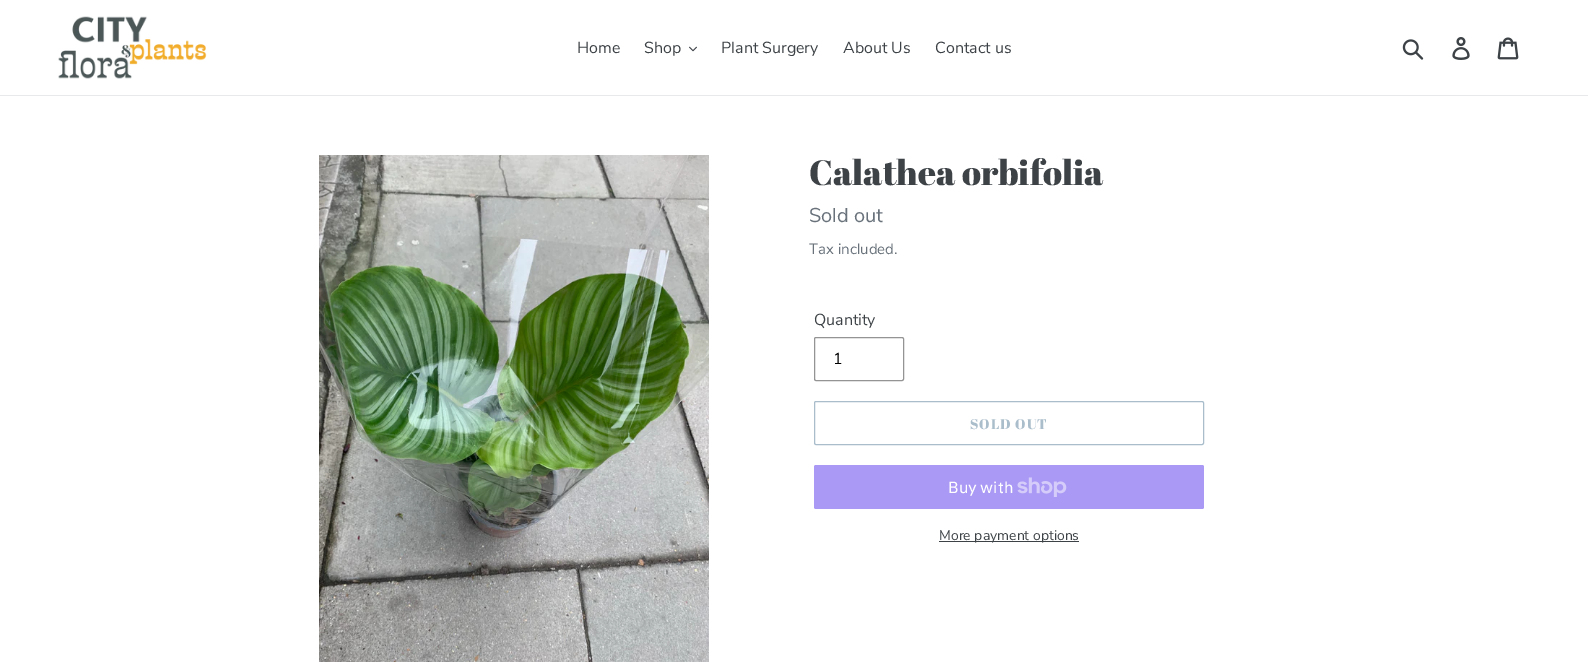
%!PS
<< /PageSize [1588 662] >> setpagedevice
/mt/moveto load def
/fl/fill load def
/st/stroke load def
/co { dup -16 bitshift 255 div exch dup -8 bitshift 255 and 255 div exch 255 and 255 div setrgbcolor } def
/fn { [ exch dup neg 0 0 3 -1 roll 0 0 ] selectfont } def
/tx { co fn moveto show } def
/bx { co rectfill } def
/rr { 5 dict begin { /r /h /w /y /x } { exch def } forall
  x r add y moveto x w add y 2 copy h add r arct x w add y h add x 1 index r arct
  x y h add x y r arct x y 2 copy exch w add exch r arct closepath end } def
/im { 5 dict begin { /h /w /y /x /name } { exch def } forall
  gsave x y translate w h scale
  w h 8 [w 0 0 h 0 0] name (r) file false 3 colorimage grestore end } def
0 662 translate 1 -1 scale
4 setmiterlimit
0 0 1588 662 16#FFFFFF bx
0 95 1588 1 16#E8E9EB bx
(media/1.raw) 58 16 149 63 im
(media/2.raw) 689 46 8 6 im
(media/3.raw) 1402 39 22 21 im
(media/4.raw) 1452 37 18 23 im
(media/5.raw) 1497 37 22 23 im
(media/6.raw) 319 155 390 507 im
16#949494 co
814.5 337.5 89 43 1.5 rr st
16#AABDCB co
814.5 401.5 389 43 1.5 rr st
16#AA99F5 co
814 465 390 44 2 rr fl
(media/7.raw) 1017 477 50 20 im
939 541 140 1 16#3D4246 bx
(Home) 577 53 /NunitoSans-Regular 16 16#3D4246 tx
(Shop) 644 53 /NunitoSans-Regular 16 16#3D4246 tx
(Plant Surgery) 721 53 /NunitoSans-Regular 16 16#3D4246 tx
(About Us) 843 53 /NunitoSans-Regular 16 16#3D4246 tx
(Contact us) 935 53 /NunitoSans-Regular 16 16#3D4246 tx
(Calathea orbifolia) 809 185 /AbrilFatface-Regular 35 16#3D4246 tx
(Sold out) 809 222 /NunitoSans-Regular 20 16#69727B tx
(Tax included.) 809 254 /NunitoSans-Regular 15 16#69727B tx
(Quantity) 814 325 /NunitoSans-Regular 16 16#3D4246 tx
(1) 833 364 /NunitoSans-Regular 16 16#000000 tx
/AbrilFatface-Regular 14 fn
16#AABDCB co
970 429 mt 1 0 (SOLD OUT) ashow
(Buy with) 948 493 /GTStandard-Regular 16 16#FFFFFF tx
(More payment options) 939 540 /NunitoSans-Regular 14 16#3D4246 tx
showpage
